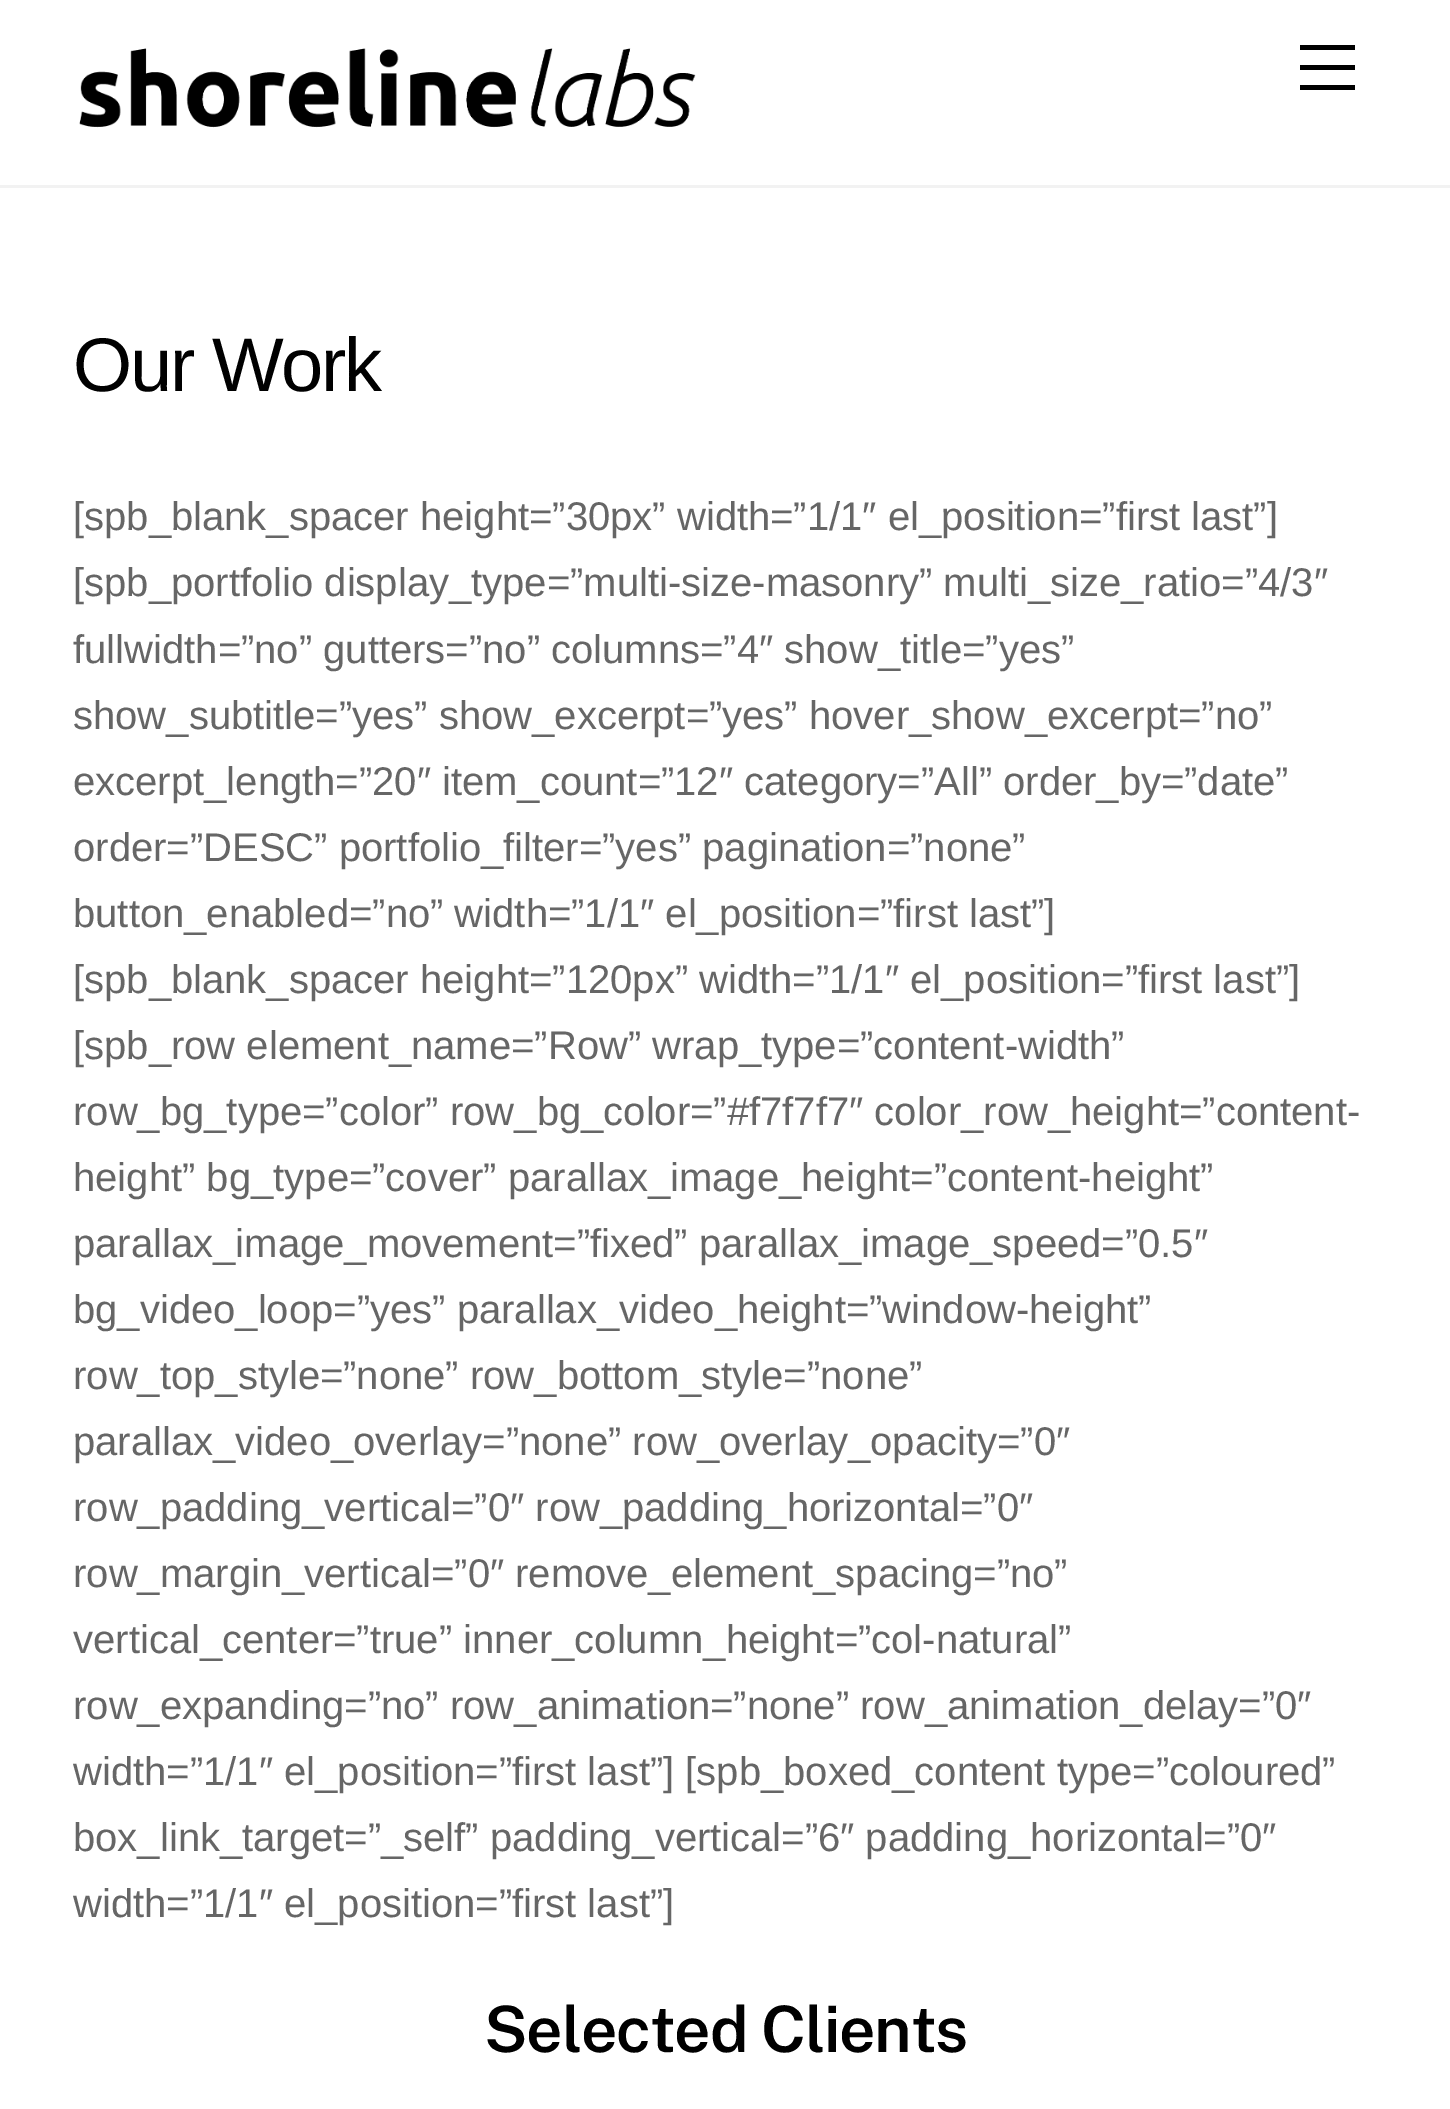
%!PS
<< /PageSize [1450 2109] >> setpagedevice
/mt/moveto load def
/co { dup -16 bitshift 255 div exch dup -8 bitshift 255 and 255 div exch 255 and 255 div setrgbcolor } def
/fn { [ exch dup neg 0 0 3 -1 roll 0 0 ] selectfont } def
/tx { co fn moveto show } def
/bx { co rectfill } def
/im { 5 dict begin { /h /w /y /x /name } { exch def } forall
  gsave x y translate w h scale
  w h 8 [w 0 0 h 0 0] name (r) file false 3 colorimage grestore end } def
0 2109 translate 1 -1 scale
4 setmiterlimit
0 0 1450 2109 16#FFFFFF bx
0 185 1450 3 16#F2F2F2 bx
(media/1.raw) 79 48 617 80 im
1300 85 55 5 16#000000 bx
1300 45 55 5 16#000000 bx
1300 65 55 5 16#000000 bx
/LiberationSans-Regular 76 fn
73 391 mt -2.25 0 (Our Work) ashow
([spb_blank_spacer height=”30px” width=”1/1″ el_position=”first last”]) 73 530 /LiberationSans-Regular 40 16#666666 tx
([spb_portfolio display_type=”multi-size-masonry” multi_size_ratio=”4/3″) 73 596 /LiberationSans-Regular 40 16#666666 tx
(fullwidth=”no” gutters=”no” columns=”4″ show_title=”yes”) 73 663 /LiberationSans-Regular 40 16#666666 tx
(show_subtitle=”yes” show_excerpt=”yes” hover_show_excerpt=”no”) 73 729 /LiberationSans-Regular 40 16#666666 tx
(excerpt_length=”20″ item_count=”12″ category=”All” order_by=”date”) 73 795 /LiberationSans-Regular 40 16#666666 tx
(order=”DESC” portfolio_filter=”yes” pagination=”none”) 73 861 /LiberationSans-Regular 40 16#666666 tx
(button_enabled=”no” width=”1/1″ el_position=”first last”]) 73 927 /LiberationSans-Regular 40 16#666666 tx
([spb_blank_spacer height=”120px” width=”1/1″ el_position=”first last”]) 73 993 /LiberationSans-Regular 40 16#666666 tx
([spb_row element_name=”Row” wrap_type=”content-width”) 73 1059 /LiberationSans-Regular 40 16#666666 tx
(row_bg_type=”color” row_bg_color=”#f7f7f7″ color_row_height=”content-) 73 1125 /LiberationSans-Regular 40 16#666666 tx
(height” bg_type=”cover” parallax_image_height=”content-height”) 73 1191 /LiberationSans-Regular 40 16#666666 tx
(parallax_image_movement=”fixed” parallax_image_speed=”0.5″) 73 1257 /LiberationSans-Regular 40 16#666666 tx
(bg_video_loop=”yes” parallax_video_height=”window-height”) 73 1323 /LiberationSans-Regular 40 16#666666 tx
(row_top_style=”none” row_bottom_style=”none”) 73 1389 /LiberationSans-Regular 40 16#666666 tx
(parallax_video_overlay=”none” row_overlay_opacity=”0″) 73 1455 /LiberationSans-Regular 40 16#666666 tx
(row_padding_vertical=”0″ row_padding_horizontal=”0″) 73 1521 /LiberationSans-Regular 40 16#666666 tx
(row_margin_vertical=”0″ remove_element_spacing=”no”) 73 1587 /LiberationSans-Regular 40 16#666666 tx
(vertical_center=”true” inner_column_height=”col-natural”) 73 1653 /LiberationSans-Regular 40 16#666666 tx
(row_expanding=”no” row_animation=”none” row_animation_delay=”0″) 73 1719 /LiberationSans-Regular 40 16#666666 tx
(width=”1/1″ el_position=”first last”] [spb_boxed_content type=”coloured”) 73 1785 /LiberationSans-Regular 40 16#666666 tx
(box_link_target=”_self” padding_vertical=”6″ padding_horizontal=”0″) 73 1851 /LiberationSans-Regular 40 16#666666 tx
(width=”1/1″ el_position=”first last”]) 73 1917 /LiberationSans-Regular 40 16#666666 tx
/PublicSans-SemiBold 64 fn
16#000000 co
484 2052 mt -1.25 0 (Selected Clients) ashow
showpage
